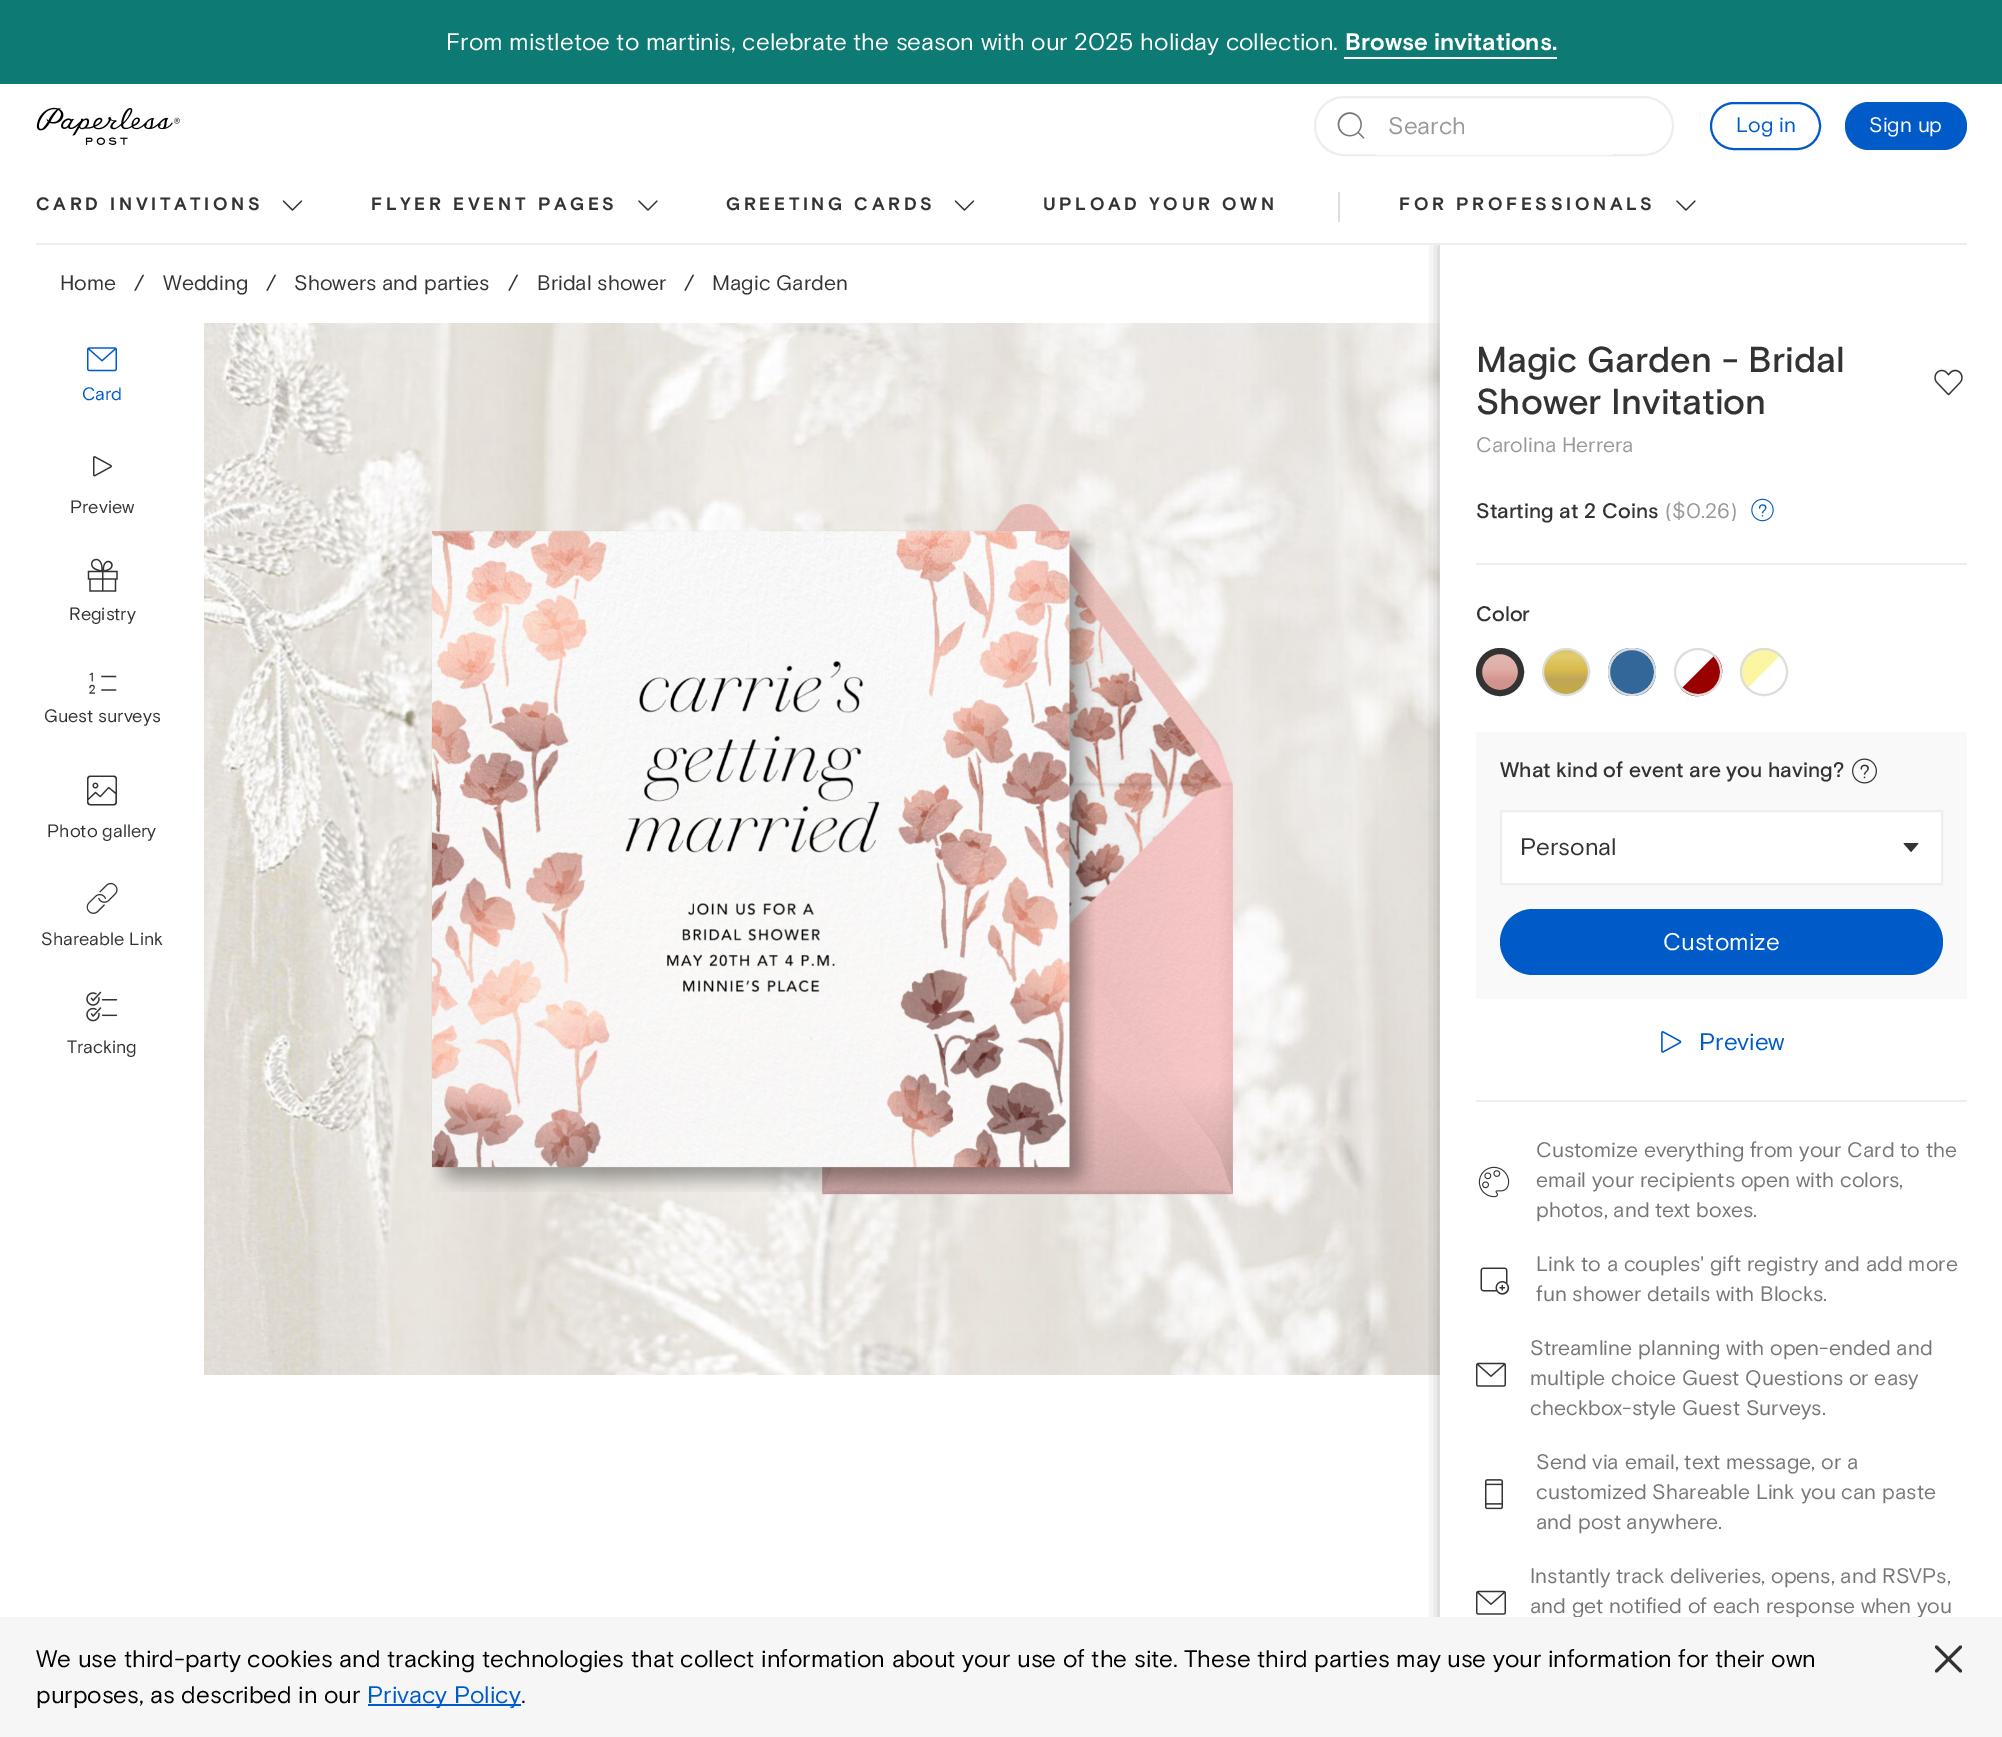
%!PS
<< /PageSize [2002 1737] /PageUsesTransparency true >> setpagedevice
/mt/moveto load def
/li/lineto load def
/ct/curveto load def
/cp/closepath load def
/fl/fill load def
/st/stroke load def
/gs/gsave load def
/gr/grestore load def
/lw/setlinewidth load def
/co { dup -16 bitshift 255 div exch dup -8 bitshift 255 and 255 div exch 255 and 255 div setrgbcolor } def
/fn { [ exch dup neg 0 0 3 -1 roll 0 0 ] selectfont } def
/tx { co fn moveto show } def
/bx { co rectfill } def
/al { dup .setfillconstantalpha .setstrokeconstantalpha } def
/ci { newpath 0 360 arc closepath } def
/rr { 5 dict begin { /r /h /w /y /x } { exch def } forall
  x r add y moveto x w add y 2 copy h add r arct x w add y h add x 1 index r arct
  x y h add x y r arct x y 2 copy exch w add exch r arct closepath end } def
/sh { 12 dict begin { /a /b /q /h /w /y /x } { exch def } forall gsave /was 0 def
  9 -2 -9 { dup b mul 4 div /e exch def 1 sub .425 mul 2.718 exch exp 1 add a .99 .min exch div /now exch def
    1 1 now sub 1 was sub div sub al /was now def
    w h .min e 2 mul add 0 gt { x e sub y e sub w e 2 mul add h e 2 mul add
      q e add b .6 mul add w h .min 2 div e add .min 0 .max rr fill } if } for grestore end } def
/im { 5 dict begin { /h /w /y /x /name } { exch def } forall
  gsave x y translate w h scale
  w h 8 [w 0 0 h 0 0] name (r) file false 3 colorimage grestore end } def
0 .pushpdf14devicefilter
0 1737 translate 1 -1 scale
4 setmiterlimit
0 0 2002 1737 16#FFFFFF bx
0 0 2002 84 16#0D7A73 bx
1344 57 213 2 16#FFFFFF bx
(media/12.raw) 204 323 1236 1052 im
gs
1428 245 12 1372 rectclip
16#000000 co
1439 245 562 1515 0 7.5 .25 sh
gr
1429 232 573 13 16#FFFFFF bx
(media/1.raw) 36 107 144 38 im
16#EEEEEE co
2 lw
1315 97 358 58 29 rr st
(media/2.raw) 1337 112 28 27 im
1376 154 237 1 16#FFFFFF bx
16#005AC8 co
1711 103 109 46 23 rr st
1845 102 122 48 24 rr fl
36 243 1931 2 16#EEEEEE bx
(media/3.raw) 282 200 21 11 im
(media/4.raw) 638 200 20 11 im
(media/3.raw) 954 200 21 11 im
1338 192 2 30 16#DDDDDD bx
(media/4.raw) 1676 200 20 11 im
(media/5.raw) 87 347 30 25 im
(media/6.raw) 93 456 19 21 im
(media/7.raw) 87 558 31 34 im
(media/8.raw) 89 672 28 22 im
(media/9.raw) 87 775 30 31 im
(media/10.raw) 86 882 32 32 im
(media/11.raw) 86 991 32 31 im
(media/13.raw) 822 504 411 691 im
(media/14.raw) 431 530 664 662 im
(media/15.raw) 1934 369 29 27 im
(media/16.raw) 1751 498 23 24 im
1476 563 491 2 16#EEEEEE bx
gs 1500 672 21 ci clip newpath
<< /ShadingType 2 /ColorSpace /DeviceRGB /Coords [1500 696 1500 648] /Extend [true true] /Function << /FunctionType 3 /Domain [0 1] /Functions [<< /FunctionType 2 /Domain [0 1] /C0 [.812 .569 .537] /C1 [.831 .584 .561] /N 1 >> << /FunctionType 2 /Domain [0 1] /C0 [.831 .584 .561] /C1 [.875 .682 .647] /N 1 >> << /FunctionType 2 /Domain [0 1] /C0 [.875 .682 .647] /C1 [.878 .714 .698] /N 1 >> << /FunctionType 2 /Domain [0 1] /C0 [.878 .714 .698] /C1 [.878 .675 .671] /N 1 >>] /Bounds [.35 .55 .85] /Encode [0 1 0 1 0 1 0 1] >> >> shfill gr
16#333333 co
6 lw
1500 672 21 ci st
gs 1566 672 23 ci clip newpath
<< /ShadingType 2 /ColorSpace /DeviceRGB /Coords [1566 696 1566 648] /Extend [true true] /Function << /FunctionType 3 /Domain [0 1] /Functions [<< /FunctionType 2 /Domain [0 1] /C0 [.78 .678 .243] /C1 [.753 .647 .349] /N 1 >> << /FunctionType 2 /Domain [0 1] /C0 [.753 .647 .349] /C1 [.851 .741 .298] /N 1 >> << /FunctionType 2 /Domain [0 1] /C0 [.851 .741 .298] /C1 [.89 .8 .431] /N 1 >> << /FunctionType 2 /Domain [0 1] /C0 [.89 .8 .431] /C1 [.835 .749 .388] /N 1 >>] /Bounds [.35 .55 .85] /Encode [0 1 0 1 0 1 0 1] >> >> shfill gr
16#DDDDDD co
2 lw
1566 672 23 ci st
16#336699 co
1632 648 mt 1600 648 1600 696 1632 696 ct 1664 696 1664 648 1632 648 ct cp fl
16#DDDDDD co
1632 672 23 ci st
16#990000 co
1715 655 mt 1737 677 1703 711 1681 689 ct cp fl
16#DDDDDD co
1698 672 23 ci st
16#FCF5A2 co
1764 648 mt 1771 648 1777 651 1781 655 ct 1747 689 li 1732 674 1742 648 1764 648 ct cp fl
16#FFFFFF co
1781 655 mt 1803 677 1769 711 1747 689 ct cp fl
16#DDDDDD co
1764 672 23 ci st
1476 732 491 267 16#F9F9F9 bx
(media/17.raw) 1852 758 25 26 im
16#FFFFFF co
1501 811 mt 1942 811 li 1942 884 li 1501 884 li cp gs fl gr
16#EEEEEE co
st
(media/18.raw) 1903 843 16 9 im
16#005AC8 co
1500 909 443 66 33 rr fl
(media/19.raw) 1661 1031 21 22 im
1476 1100 491 2 16#EEEEEE bx
(media/20.raw) 1478 1166 32 32 im
(media/21.raw) 1480 1267 30 28 im
(media/22.raw) 1476 1362 30 25 im
(media/23.raw) 1485 1479 18 31 im
(media/22.raw) 1476 1590 30 25 im
(From mistletoe to martinis, celebrate the season with our 2025 holiday collection.) 446 50 /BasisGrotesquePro-Regular 24 16#FFFFFF tx
(Browse invitations.) 1345 50 /BasisGrotesquePro-Bold 24 16#FFFFFF tx
(Search) 1388 134 /BasisGrotesquePro-Regular 24 16#999999 tx
(Log in) 1736 132 /BasisGrotesquePro-Regular 21 16#005AC8 tx
(Sign up) 1869 132 /BasisGrotesquePro-Regular 21 16#FFFFFF tx
/BasisGrotesquePro-Bold 18 fn
16#333333 co
36 210 mt 3.6 0 (CARD INVITATIONS) ashow
371 210 mt 3.6 0 (FLYER EVENT PAGES) ashow
726 210 mt 3.6 0 (GREETING CARDS) ashow
1043 210 mt 3.6 0 (UPLOAD YOUR OWN) ashow
1399 210 mt 3.6 0 (FOR PROFESSIONALS) ashow
(Home) 60 290 /BasisGrotesquePro-Regular 21 16#333333 tx
(/) 134 290 /BasisGrotesquePro-Regular 21 16#333333 tx
(Wedding) 163 290 /BasisGrotesquePro-Regular 21 16#333333 tx
(/) 266 290 /BasisGrotesquePro-Regular 21 16#333333 tx
(Showers and parties) 294 290 /BasisGrotesquePro-Regular 21 16#333333 tx
(/) 508 290 /BasisGrotesquePro-Regular 21 16#333333 tx
(Bridal shower) 537 290 /BasisGrotesquePro-Regular 21 16#333333 tx
(/) 684 290 /BasisGrotesquePro-Regular 21 16#333333 tx
(Magic Garden) 712 290 /BasisGrotesquePro-Regular 21 16#333333 tx
(Card) 82 400 /BasisGrotesquePro-Regular 18 16#005AC8 tx
(Preview) 70 513 /BasisGrotesquePro-Regular 18 16#333333 tx
(Registry) 69 620 /BasisGrotesquePro-Regular 18 16#333333 tx
(Guest surveys) 44 722 /BasisGrotesquePro-Regular 18 16#333333 tx
(Photo gallery) 47 837 /BasisGrotesquePro-Regular 18 16#333333 tx
(Shareable Link) 41 945 /BasisGrotesquePro-Regular 18 16#333333 tx
(Tracking) 67 1053 /BasisGrotesquePro-Regular 18 16#333333 tx
(Magic Garden - Bridal) 1476 372 /BasisGrotesquePro-Medium 36 16#333333 tx
(Shower Invitation) 1476 414 /BasisGrotesquePro-Medium 36 16#333333 tx
(Carolina Herrera) 1476 452 /BasisGrotesquePro-Regular 21 16#999999 tx
(Starting at 2 Coins) 1476 518 /BasisGrotesquePro-Medium 21 16#333333 tx
(\($0.26\)) 1665 518 /BasisGrotesquePro-Regular 21 16#999999 tx
(Color) 1476 621 /BasisGrotesquePro-Medium 21 16#333333 tx
(What kind of event are you having?) 1500 777 /BasisGrotesquePro-Medium 21 16#333333 tx
(Personal) 1520 855 /BasisGrotesquePro-Regular 24 16#333333 tx
(Customize) 1663 950 /BasisGrotesquePro-Regular 24 16#FFFFFF tx
(Preview) 1699 1050 /BasisGrotesquePro-Regular 24 16#005AC8 tx
(Customize everything from your Card to the) 1536 1157 /BasisGrotesquePro-Regular 21 16#767676 tx
(email your recipients open with colors,) 1536 1187 /BasisGrotesquePro-Regular 21 16#767676 tx
(photos, and text boxes.) 1536 1217 /BasisGrotesquePro-Regular 21 16#767676 tx
(Link to a couples' gift registry and add more) 1536 1271 /BasisGrotesquePro-Regular 21 16#767676 tx
(fun shower details with Blocks.) 1536 1301 /BasisGrotesquePro-Regular 21 16#767676 tx
(Streamline planning with open-ended and) 1530 1355 /BasisGrotesquePro-Regular 21 16#767676 tx
(multiple choice Guest Questions or easy) 1530 1385 /BasisGrotesquePro-Regular 21 16#767676 tx
(checkbox-style Guest Surveys.) 1530 1415 /BasisGrotesquePro-Regular 21 16#767676 tx
(Send via email, text message, or a) 1536 1469 /BasisGrotesquePro-Regular 21 16#767676 tx
(customized Shareable Link you can paste) 1536 1499 /BasisGrotesquePro-Regular 21 16#767676 tx
(and post anywhere.) 1536 1529 /BasisGrotesquePro-Regular 21 16#767676 tx
(Instantly track deliveries, opens, and RSVPs,) 1530 1583 /BasisGrotesquePro-Regular 21 16#767676 tx
(and get notified of each response when you) 1530 1613 /BasisGrotesquePro-Regular 21 16#767676 tx
0 1617 2002 120 16#F6F6F6 bx
(We use third-party cookies and tracking technologies that collect information about your use of the site. These third parties may use your information for their own) 36 1667 /BasisGrotesquePro-Regular 24 16#000000 tx
(purposes, as described in our) 36 1703 /BasisGrotesquePro-Regular 24 16#000000 tx
368 1704 153 2 16#005AC8 bx
(Privacy Policy) 367 1703 /BasisGrotesquePro-Regular 24 16#005AC8 tx
(.) 521 1703 /BasisGrotesquePro-Regular 24 16#000000 tx
16#333333 co
3 lw
1 setlinecap
1 setlinejoin
1936.5 1671 mt 1960.5 1647 li 1936.5 1647 mt 1960.5 1671 li st
.poppdf14devicefilter showpage
